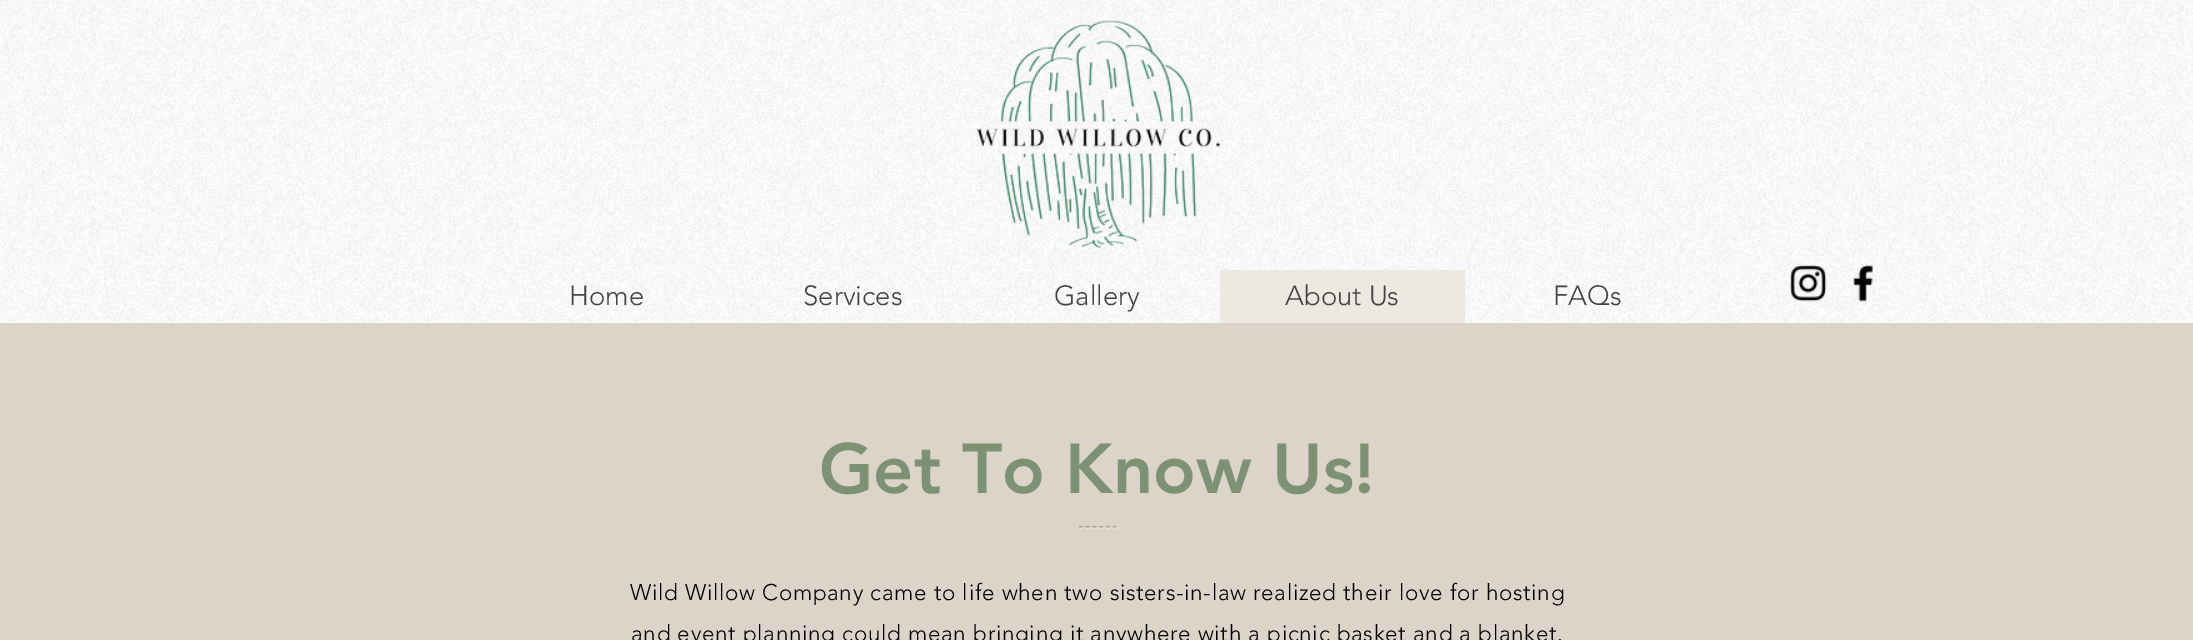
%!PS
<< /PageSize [2193 640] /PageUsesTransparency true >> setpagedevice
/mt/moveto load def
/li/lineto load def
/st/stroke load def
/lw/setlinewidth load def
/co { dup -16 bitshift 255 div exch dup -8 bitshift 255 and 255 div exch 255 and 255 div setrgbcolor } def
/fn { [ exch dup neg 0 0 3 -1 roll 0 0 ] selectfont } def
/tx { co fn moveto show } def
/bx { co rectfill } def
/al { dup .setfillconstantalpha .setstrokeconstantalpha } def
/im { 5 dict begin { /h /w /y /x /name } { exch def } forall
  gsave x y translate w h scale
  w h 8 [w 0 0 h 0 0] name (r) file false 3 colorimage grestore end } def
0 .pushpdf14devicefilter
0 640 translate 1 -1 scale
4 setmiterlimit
0 0 2193 640 16#FFFFFF bx
(media/1.raw) 0 0 2193 323 im
(media/2.raw) 976 20 245 228 im
(media/3.raw) 1790 265 37 37 im
(media/4.raw) 1853 265 20 37 im
1220 270 245 53 16#EDE9E1 bx
0 323 2193 317 16#DCD4C8 bx
16#8F8A82 co
1.2 lw
[3.75 3] 0 setdash
1079 527 mt 1116 527 li st
0.5 al
16#FFFFFF co
1079 528 mt 1116 528 li st
1 al
(Home) 569 305 /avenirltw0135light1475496-Light 27.5 16#444444 tx
(Services) 803 305 /avenirltw0135light1475496-Light 27.5 16#444444 tx
(Gallery) 1054 305 /avenirltw0135light1475496-Light 27.5 16#444444 tx
(About Us) 1285 305 /avenirltw0135light1475496-Light 27.5 16#444444 tx
(FAQs) 1553 305 /avenirltw0135light1475496-Light 27.5 16#444444 tx
(Get To Know Us!) 819 493 /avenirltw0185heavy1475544-Black 70 16#7D9174 tx
/avenirltw0135light1475496-Light 22.5 fn
16#000000 co
630 600 mt .68 0 (Wild Willow Company came to life when two sisters-in-law realized their love for hosting) ashow
631 641 mt .68 0 (and event planning could mean bringing it anywhere with a picnic basket and a blanket.) ashow
.poppdf14devicefilter showpage
